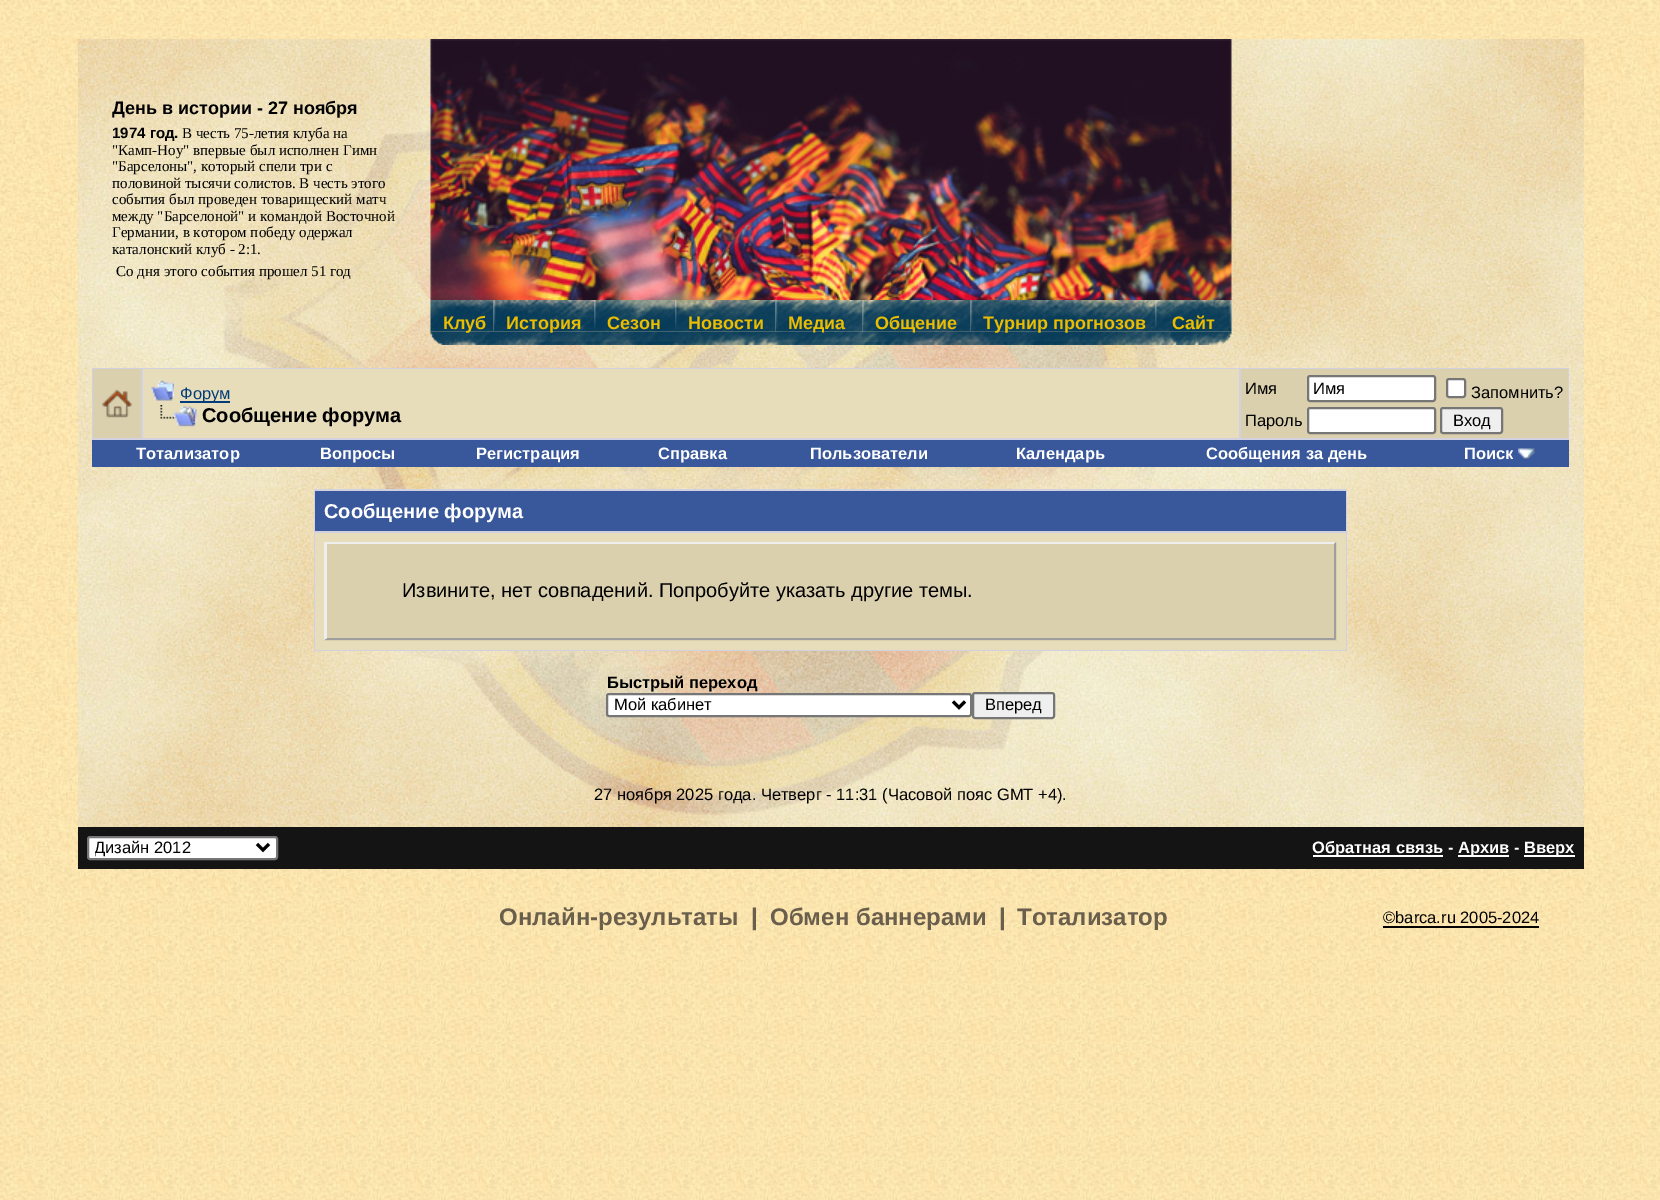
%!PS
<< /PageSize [1660 1200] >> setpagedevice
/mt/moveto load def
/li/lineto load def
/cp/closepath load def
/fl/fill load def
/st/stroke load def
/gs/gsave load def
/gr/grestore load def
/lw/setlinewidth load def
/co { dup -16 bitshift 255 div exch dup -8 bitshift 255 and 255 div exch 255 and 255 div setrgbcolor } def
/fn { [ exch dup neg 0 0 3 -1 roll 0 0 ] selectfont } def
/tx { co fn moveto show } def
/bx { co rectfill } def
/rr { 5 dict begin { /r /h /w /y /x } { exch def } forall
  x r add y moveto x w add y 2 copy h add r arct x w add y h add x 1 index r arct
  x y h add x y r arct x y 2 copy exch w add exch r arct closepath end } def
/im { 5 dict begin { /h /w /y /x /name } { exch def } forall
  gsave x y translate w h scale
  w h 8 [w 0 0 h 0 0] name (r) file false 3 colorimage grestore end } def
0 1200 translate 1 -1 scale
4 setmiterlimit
0 0 1660 1200 16#FFFFFF bx
(media/1.raw) 0 868 1660 332 im
(media/2.raw) 0 0 1660 869 im
(media/3.raw) 78 39 1506 788 im
(media/4.raw) 430 39 802 261 im
(media/5.raw) 430 331 802 14 im
(media/6.raw) 430 300 64 32 im
(media/7.raw) 493 300 101 32 im
(media/8.raw) 594 300 81 32 im
(media/9.raw) 675 300 101 32 im
(media/10.raw) 775 300 88 32 im
(media/11.raw) 862 300 109 32 im
(media/12.raw) 970 300 185 32 im
(media/13.raw) 1155 300 77 32 im
92 368 1477 72 16#D1D1E1 bx
93 369 48 69 16#DAD0AE bx
(media/14.raw) 102 389 30 29 im
143 369 1096 69 16#E7DDBB bx
(media/15.raw) 151 380 23 21 im
180 401 50 2 16#013D7A bx
(media/16.raw) 160 405 37 22 im
1241 369 327 69 16#DAD0AE bx
16#FFFFFF co
1308 376 127 25 2 rr gs fl gr
16#767676 co
2 lw
st
16#FFFFFF co
1447 379 18 18 2 rr gs fl gr
16#767676 co
st
16#FFFFFF co
1308 408 127 25 2 rr gs fl gr
16#767676 co
st
16#EFEFEF co
1441 408 61 25 2 rr gs fl gr
16#767676 co
st
92 440 1477 27 16#39589B bx
(media/17.raw) 1518 448 17 11 im
314 489 1033 162 16#D1D1E1 bx
315 491 1031 40 16#39589B bx
315 533 1031 117 16#E7DDBB bx
324 542 1013 99 16#DAD0AE bx
16#EEEEEE co
324 542 mt 1336 542 li 1334 544 li 327 544 li cp fl
16#9F9F9F co
1336 542 mt 1336 640 li 1334 638 li 1334 544 li cp fl
1336 640 mt 324 640 li 327 638 li 1334 638 li cp fl
16#EEEEEE co
324 640 mt 324 542 li 327 544 li 327 638 li cp fl
16#FFFFFF co
607 694 364 22 2 rr gs fl gr
16#767676 co
st
16#000000 co
3 lw
953 701.5 mt 959 707.5 li 965 701.5 li st
16#EFEFEF co
973 693 81 25 2 rr gs fl gr
16#767676 co
2 lw
st
78 827 1506 42 16#141414 bx
16#FFFFFF co
88 837 189 22 2 rr gs fl gr
16#767676 co
st
16#000000 co
3 lw
257 844 mt 263 850 li 269 844 li st
1313 855 130 2 16#FFFFFF bx
1458 855 51 2 16#FFFFFF bx
1524 855 51 2 16#FFFFFF bx
1383 926 156 2 16#000000 bx
(День в истории - 27 ноября) 112 114 /LiberationSans-Bold 18 16#000000 tx
(1974 год.) 112 138 /LiberationSans-Bold 15 16#000000 tx
(В честь 75-летия клуба на) 182 138 /LiberationSerif-Regular 15 16#000000 tx
("Камп-Ноу" впервые был исполнен Гимн) 112 155 /LiberationSerif-Regular 15 16#000000 tx
("Барселоны", который спели три с) 112 171 /LiberationSerif-Regular 15 16#000000 tx
(половиной тысячи солистов. В честь этого) 112 188 /LiberationSerif-Regular 15 16#000000 tx
(события был проведен товарищеский матч) 112 204 /LiberationSerif-Regular 15 16#000000 tx
(между "Барселоной" и командой Восточной) 112 221 /LiberationSerif-Regular 15 16#000000 tx
(Германии, в котором победу одержал) 112 237 /LiberationSerif-Regular 15 16#000000 tx
(каталонский клуб - 2:1.) 112 254 /LiberationSerif-Regular 15 16#000000 tx
(Со дня этого события прошел 51 год) 116 276 /LiberationSerif-Regular 15 16#000000 tx
(Клуб) 443 329 /LiberationSans-Bold 18 16#EBBD00 tx
(История) 506 329 /LiberationSans-Bold 18 16#EBBD00 tx
(Сезон) 607 329 /LiberationSans-Bold 18 16#EBBD00 tx
(Новости) 688 329 /LiberationSans-Bold 18 16#EBBD00 tx
(Медиа) 788 329 /LiberationSans-Bold 18 16#EBBD00 tx
(Общение) 875 329 /LiberationSans-Bold 18 16#EBBD00 tx
(Турнир прогнозов) 983 329 /LiberationSans-Bold 18 16#EBBD00 tx
(Сайт) 1172 329 /LiberationSans-Bold 18 16#EBBD00 tx
(Форум) 180 399 /LiberationSans-Regular 16.5 16#013D7A tx
(Сообщение форума) 202 422 /LiberationSans-Bold 20 16#000000 tx
(Имя) 1245 394 /LiberationSans-Regular 16.5 16#000000 tx
(Имя) 1313 394 /LiberationSans-Regular 16.5 16#000000 tx
(Запомнить?) 1471 398 /LiberationSans-Regular 16.5 16#000000 tx
(Пароль) 1245 426 /LiberationSans-Regular 16.5 16#000000 tx
(Вход) 1453 426 /LiberationSans-Regular 16.5 16#000000 tx
(Тотализатор) 136 459 /LiberationSans-Bold 16.5 16#FFFFFF tx
(Вопросы) 320 459 /LiberationSans-Bold 16.5 16#FFFFFF tx
(Регистрация) 476 459 /LiberationSans-Bold 16.5 16#FFFFFF tx
(Справка) 658 459 /LiberationSans-Bold 16.5 16#FFFFFF tx
(Пользователи) 810 459 /LiberationSans-Bold 16.5 16#FFFFFF tx
(Календарь) 1016 459 /LiberationSans-Bold 16.5 16#FFFFFF tx
(Сообщения за день) 1206 459 /LiberationSans-Bold 16.5 16#FFFFFF tx
(Поиск) 1464 459 /LiberationSans-Bold 16.5 16#FFFFFF tx
(Сообщение форума) 324 518 /LiberationSans-Bold 20 16#FFFFFF tx
(Извините, нет совпадений. Попробуйте указать другие темы.) 402 597 /LiberationSans-Regular 20 16#000000 tx
(Быстрый переход) 607 688 /LiberationSans-Bold 16.5 16#000000 tx
(Мой кабинет) 614 710 /LiberationSans-Regular 16.5 16#000000 tx
(Вперед) 985 710 /LiberationSans-Regular 16.5 16#000000 tx
(27 ноября 2025 года. Четверг - 11:31 \(Часовой пояс GMT +4\).) 594 800 /LiberationSans-Regular 16.5 16#000000 tx
gs
95 837 157 21 rectclip
(Дизайн 2012) 94 853 /LiberationSans-Regular 16.5 16#000000 tx
gr
(Обратная связь -) 1312 853 /LiberationSans-Bold 16.5 16#FFFFFF tx
(Архив -) 1458 853 /LiberationSans-Bold 16.5 16#FFFFFF tx
(Вверх) 1524 853 /LiberationSans-Bold 16.5 16#FFFFFF tx
(Онлайн-результаты) 499 925 /LiberationSans-Bold 24 16#6A5F4C tx
(|) 751 925 /LiberationSans-Bold 24 16#6A5F4C tx
(Обмен баннерами) 770 925 /LiberationSans-Bold 24 16#6A5F4C tx
(|) 999 925 /LiberationSans-Bold 24 16#6A5F4C tx
(Тотализатор) 1017 925 /LiberationSans-Bold 24 16#6A5F4C tx
(©barca.ru 2005-2024) 1383 923 /LiberationSans-Regular 16.5 16#000000 tx
showpage
